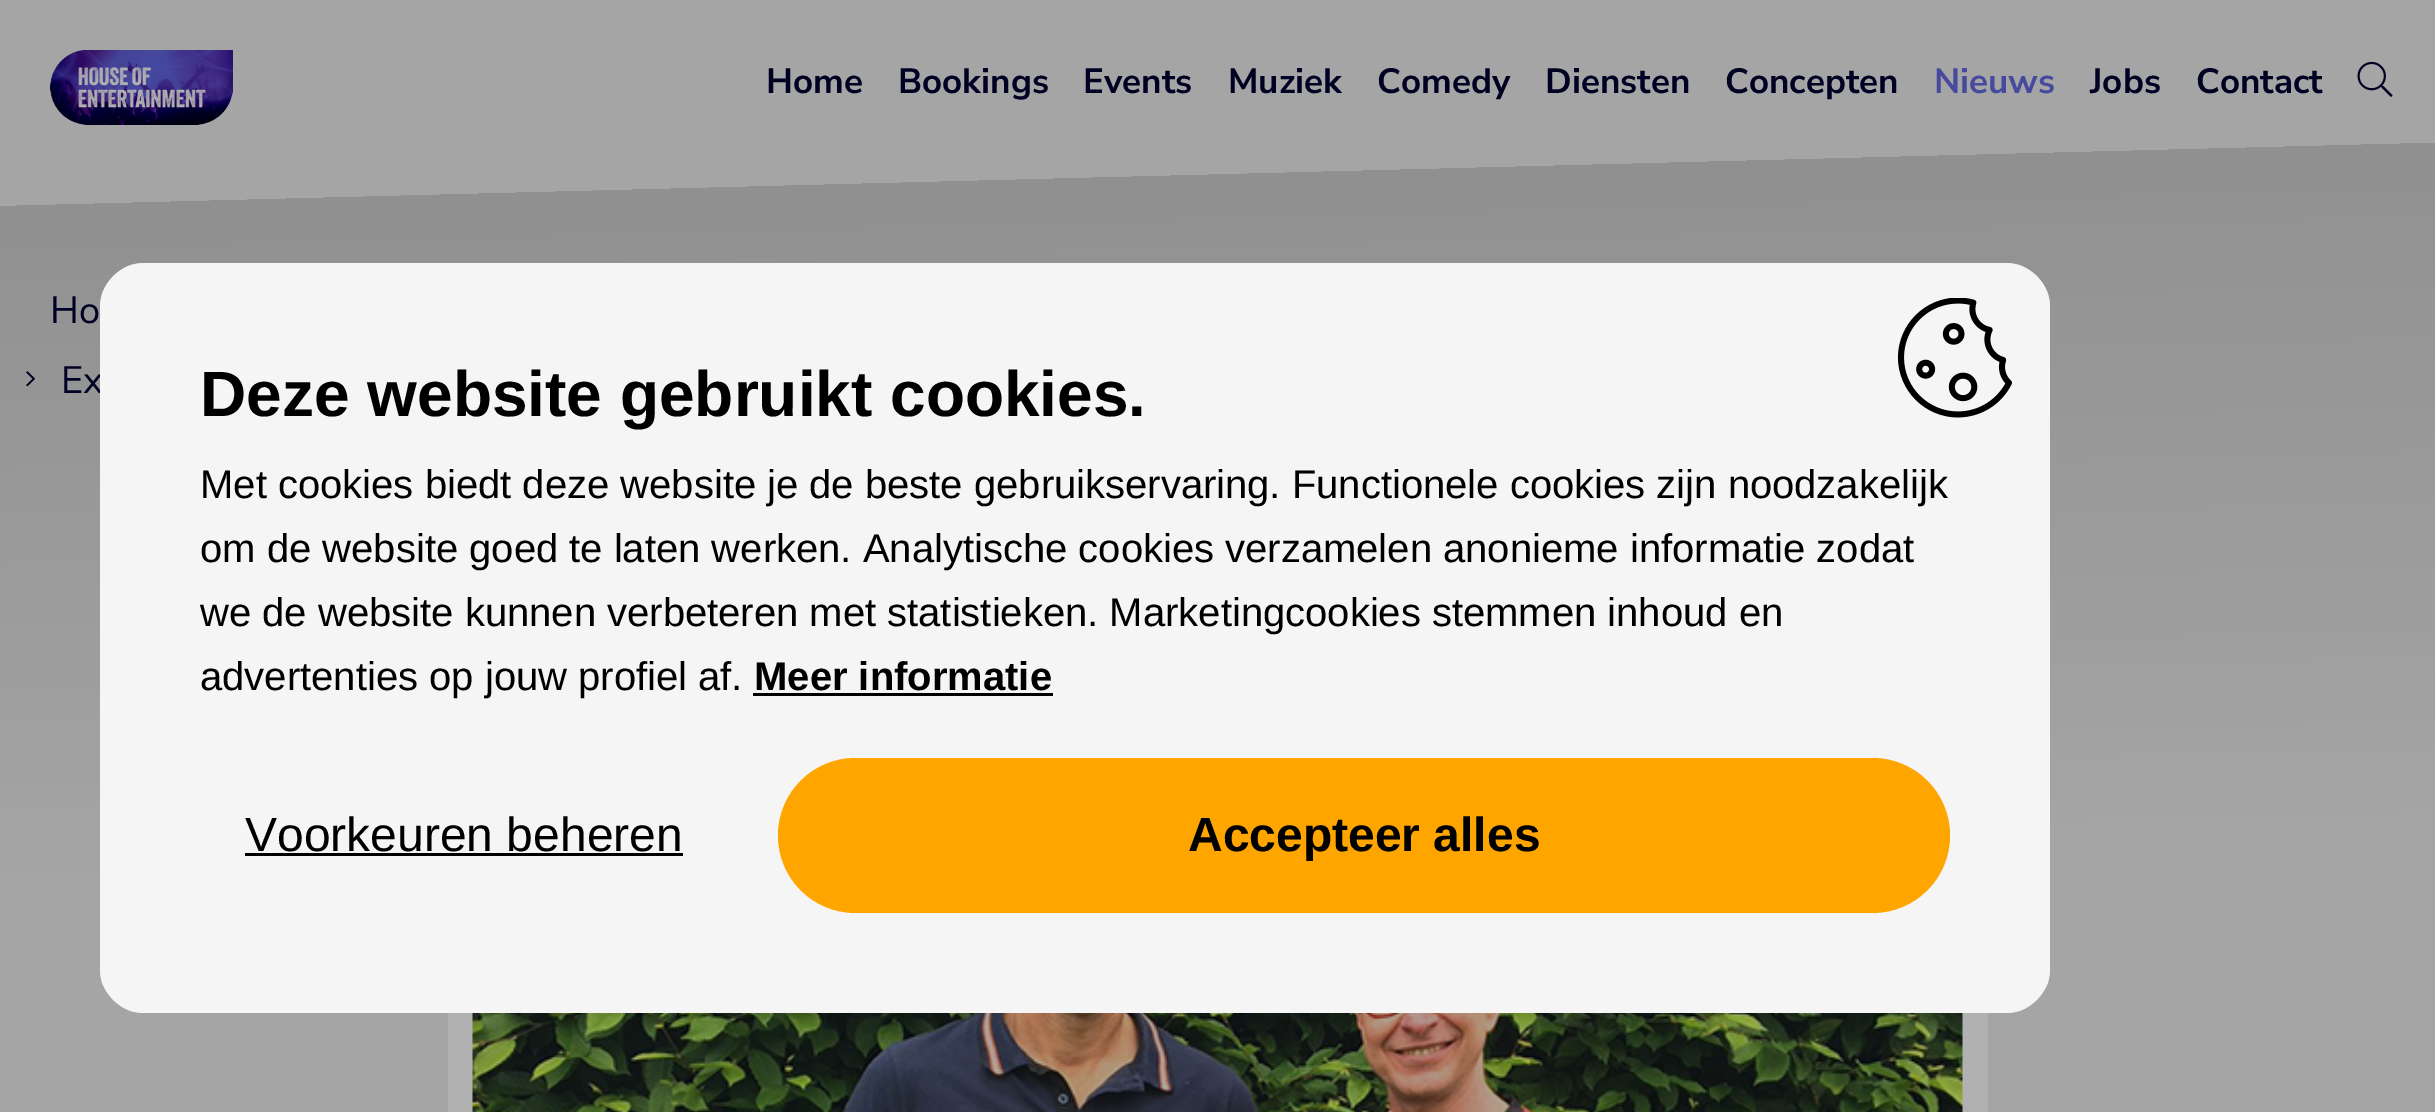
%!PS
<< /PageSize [2435 1112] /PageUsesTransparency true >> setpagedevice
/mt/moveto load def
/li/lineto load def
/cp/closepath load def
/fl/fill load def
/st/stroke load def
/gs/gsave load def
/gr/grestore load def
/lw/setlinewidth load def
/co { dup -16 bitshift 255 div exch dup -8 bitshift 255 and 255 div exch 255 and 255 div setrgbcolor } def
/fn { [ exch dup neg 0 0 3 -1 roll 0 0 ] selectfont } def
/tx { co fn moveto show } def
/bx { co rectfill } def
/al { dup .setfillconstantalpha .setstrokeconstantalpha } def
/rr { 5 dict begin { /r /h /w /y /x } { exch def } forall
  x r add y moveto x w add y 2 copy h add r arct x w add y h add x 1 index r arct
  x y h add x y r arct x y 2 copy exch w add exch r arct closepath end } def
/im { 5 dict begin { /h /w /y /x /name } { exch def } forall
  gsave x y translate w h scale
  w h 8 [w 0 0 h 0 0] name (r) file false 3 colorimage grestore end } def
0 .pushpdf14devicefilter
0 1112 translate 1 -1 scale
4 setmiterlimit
0 0 2435 1112 16#ECECEC bx
(media/1.raw) 50 50 183 75 im
(media/2.raw) 2357 61 36 36 im
gs -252 213 mt 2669 137 li 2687 804 li -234 881 li cp clip newpath
<< /ShadingType 2 /ColorSpace /DeviceRGB /Coords [1209 175 1226 842] /Extend [true true] /Function << /FunctionType 2 /Domain [0 1] /C0 [.812 .812 .812] /C1 [.925 .925 .925] /N 1 >> >> shfill gr
(media/3.raw) 26 371 9 16 im
448 1013 1540 99 16#FEFEFE bx
(media/4.raw) 472 1013 1491 99 im
(Home) 766 93 /NunitoSans-Bold 35 16#000032 tx
(Bookings) 898 93 /NunitoSans-Bold 35 16#000032 tx
(Events) 1083 93 /NunitoSans-Bold 35 16#000032 tx
(Muziek) 1228 93 /NunitoSans-Bold 35 16#000032 tx
(Comedy) 1377 93 /NunitoSans-Bold 35 16#000032 tx
(Diensten) 1545 93 /NunitoSans-Bold 35 16#000032 tx
(Concepten) 1725 93 /NunitoSans-Bold 35 16#000032 tx
(Nieuws) 1934 93 /NunitoSans-Bold 35 16#6569E3 tx
(Jobs) 2090 93 /NunitoSans-Bold 35 16#000032 tx
(Contact) 2196 93 /NunitoSans-Bold 35 16#000032 tx
(Ho) 50 323 /NunitoSans-Regular 38 16#000032 tx
(Ex) 61 393 /NunitoSans-Regular 38 16#000032 tx
0.3 al
16#000000 co
4870 lw
-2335 -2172 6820 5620 2480 rr st
1 al
16#F5F5F5 co
100 263 1950 750 45 rr fl
(Deze website gebruikt cookies.) 200 416 /LiberationSans-Bold 64 16#000000 tx
(Met cookies biedt deze website je de beste gebruikservaring. Functionele cookies zijn noodzakelijk) 200 498 /LiberationSans-Regular 40 16#000000 tx
(om de website goed te laten werken. Analytische cookies verzamelen anonieme informatie zodat) 200 562 /LiberationSans-Regular 40 16#000000 tx
(we de website kunnen verbeteren met statistieken. Marketingcookies stemmen inhoud en) 200 626 /LiberationSans-Regular 40 16#000000 tx
(advertenties op jouw profiel af.) 200 690 /LiberationSans-Regular 40 16#000000 tx
(Meer informatie) 754 690 /LiberationSans-Bold 40 16#000000 tx
753 693 300 3 16#000000 bx
(media/5.raw) 1897 298 115 120 im
(Voorkeuren beheren) 245 851 /LiberationSans-Regular 48 16#000000 tx
245 853 438 3 16#000000 bx
16#FFA500 co
778 758 1172 155 77.5 rr fl
(Accepteer alles) 1188 851 /LiberationSans-Bold 48 16#000000 tx
.poppdf14devicefilter showpage
